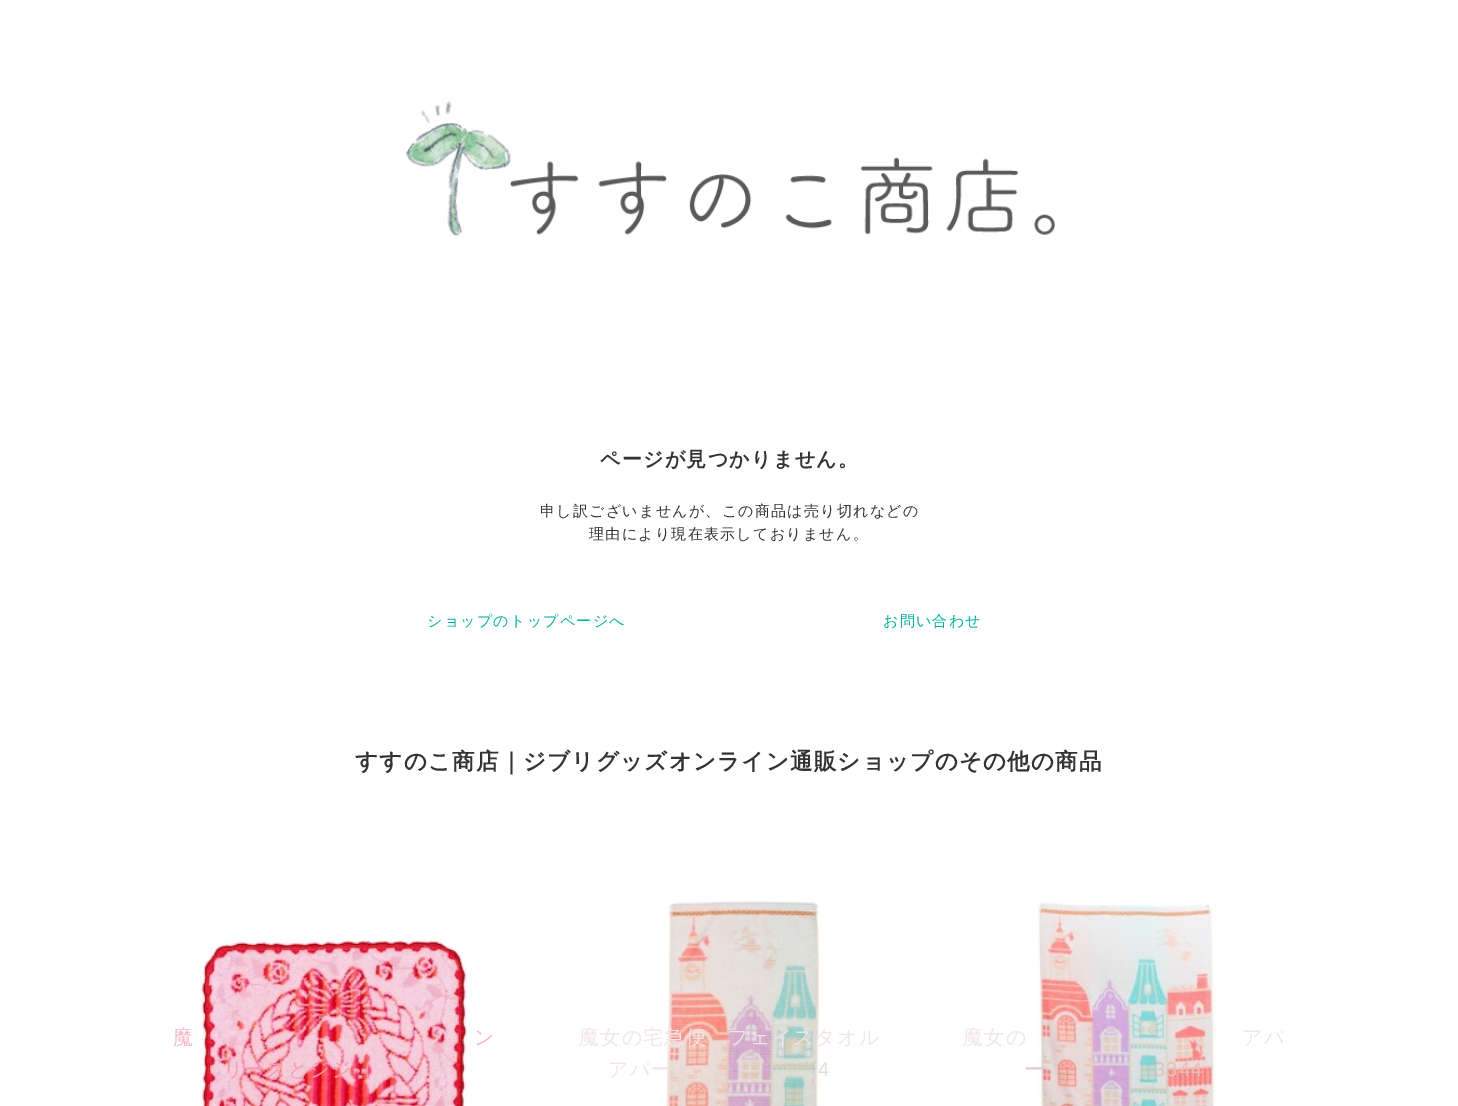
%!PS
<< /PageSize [1458 1106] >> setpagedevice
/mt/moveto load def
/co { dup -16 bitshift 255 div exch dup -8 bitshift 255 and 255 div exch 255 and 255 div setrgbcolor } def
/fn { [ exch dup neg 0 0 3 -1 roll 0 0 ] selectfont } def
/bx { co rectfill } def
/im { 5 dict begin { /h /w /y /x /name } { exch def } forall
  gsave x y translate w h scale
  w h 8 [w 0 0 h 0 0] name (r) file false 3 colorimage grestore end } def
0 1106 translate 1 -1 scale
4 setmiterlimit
0 0 1458 1106 16#FFFFFF bx
(media/1.raw) 406 101 649 135 im
(media/2.raw) 198 939 269 167 im
(media/3.raw) 666 901 155 205 im
(media/4.raw) 1037 902 180 204 im
/WenQuanYiZenHei-Bold 20 fn
16#333333 co
600 466 mt 1.25 0 (ページが見つかりません。) ashow
/WenQuanYiZenHei-Medium 15 fn
540 516 mt 1.25 0 (申し訳ございませんが、この商品は売り切れなどの) ashow
589 539 mt 1.25 0 (理由により現在表示しておりません。) ashow
16#00AE9F co
427 626 mt 1.25 0 (ショップのトップページへ) ashow
883 626 mt 1.25 0 (お問い合わせ) ashow
/WenQuanYiZenHei-Bold 22.5 fn
16#333333 co
355 769 mt 1.25 0 (すすのこ商店｜ジブリグッズオンライン通販ショップのその他の商品) ashow
/WenQuanYiZenHei-Medium 20 fn
16#F4B9C6 co
173 1044 mt 1.25 0 (魔) ashow
474 1044 mt 1.25 0 (ン) ashow
16#F39EAF co
223 1076 mt 1.25 0 (リースとジジ（) ashow
16#F3E5E5 co
579 1044 mt 1.25 0 (魔女の宅急便　フェイスタオル) ashow
608 1076 mt 1.25 0 (アパー) ashow
/LiberationSans-Regular 20 fn
16#DFE0D8 co
818 1076 mt 1.25 0 (4) ashow
/WenQuanYiZenHei-Medium 20 fn
16#F3E5E5 co
963 1044 mt 1.25 0 (魔女の) ashow
1242 1044 mt 1.25 0 (アパ) ashow
16#DFCAD4 co
1024 1076 mt 1.25 0 (ー) ashow
/LiberationSans-Regular 20 fn
16#E7BEBA co
1154 1076 mt 1.25 0 (3344) ashow
showpage
